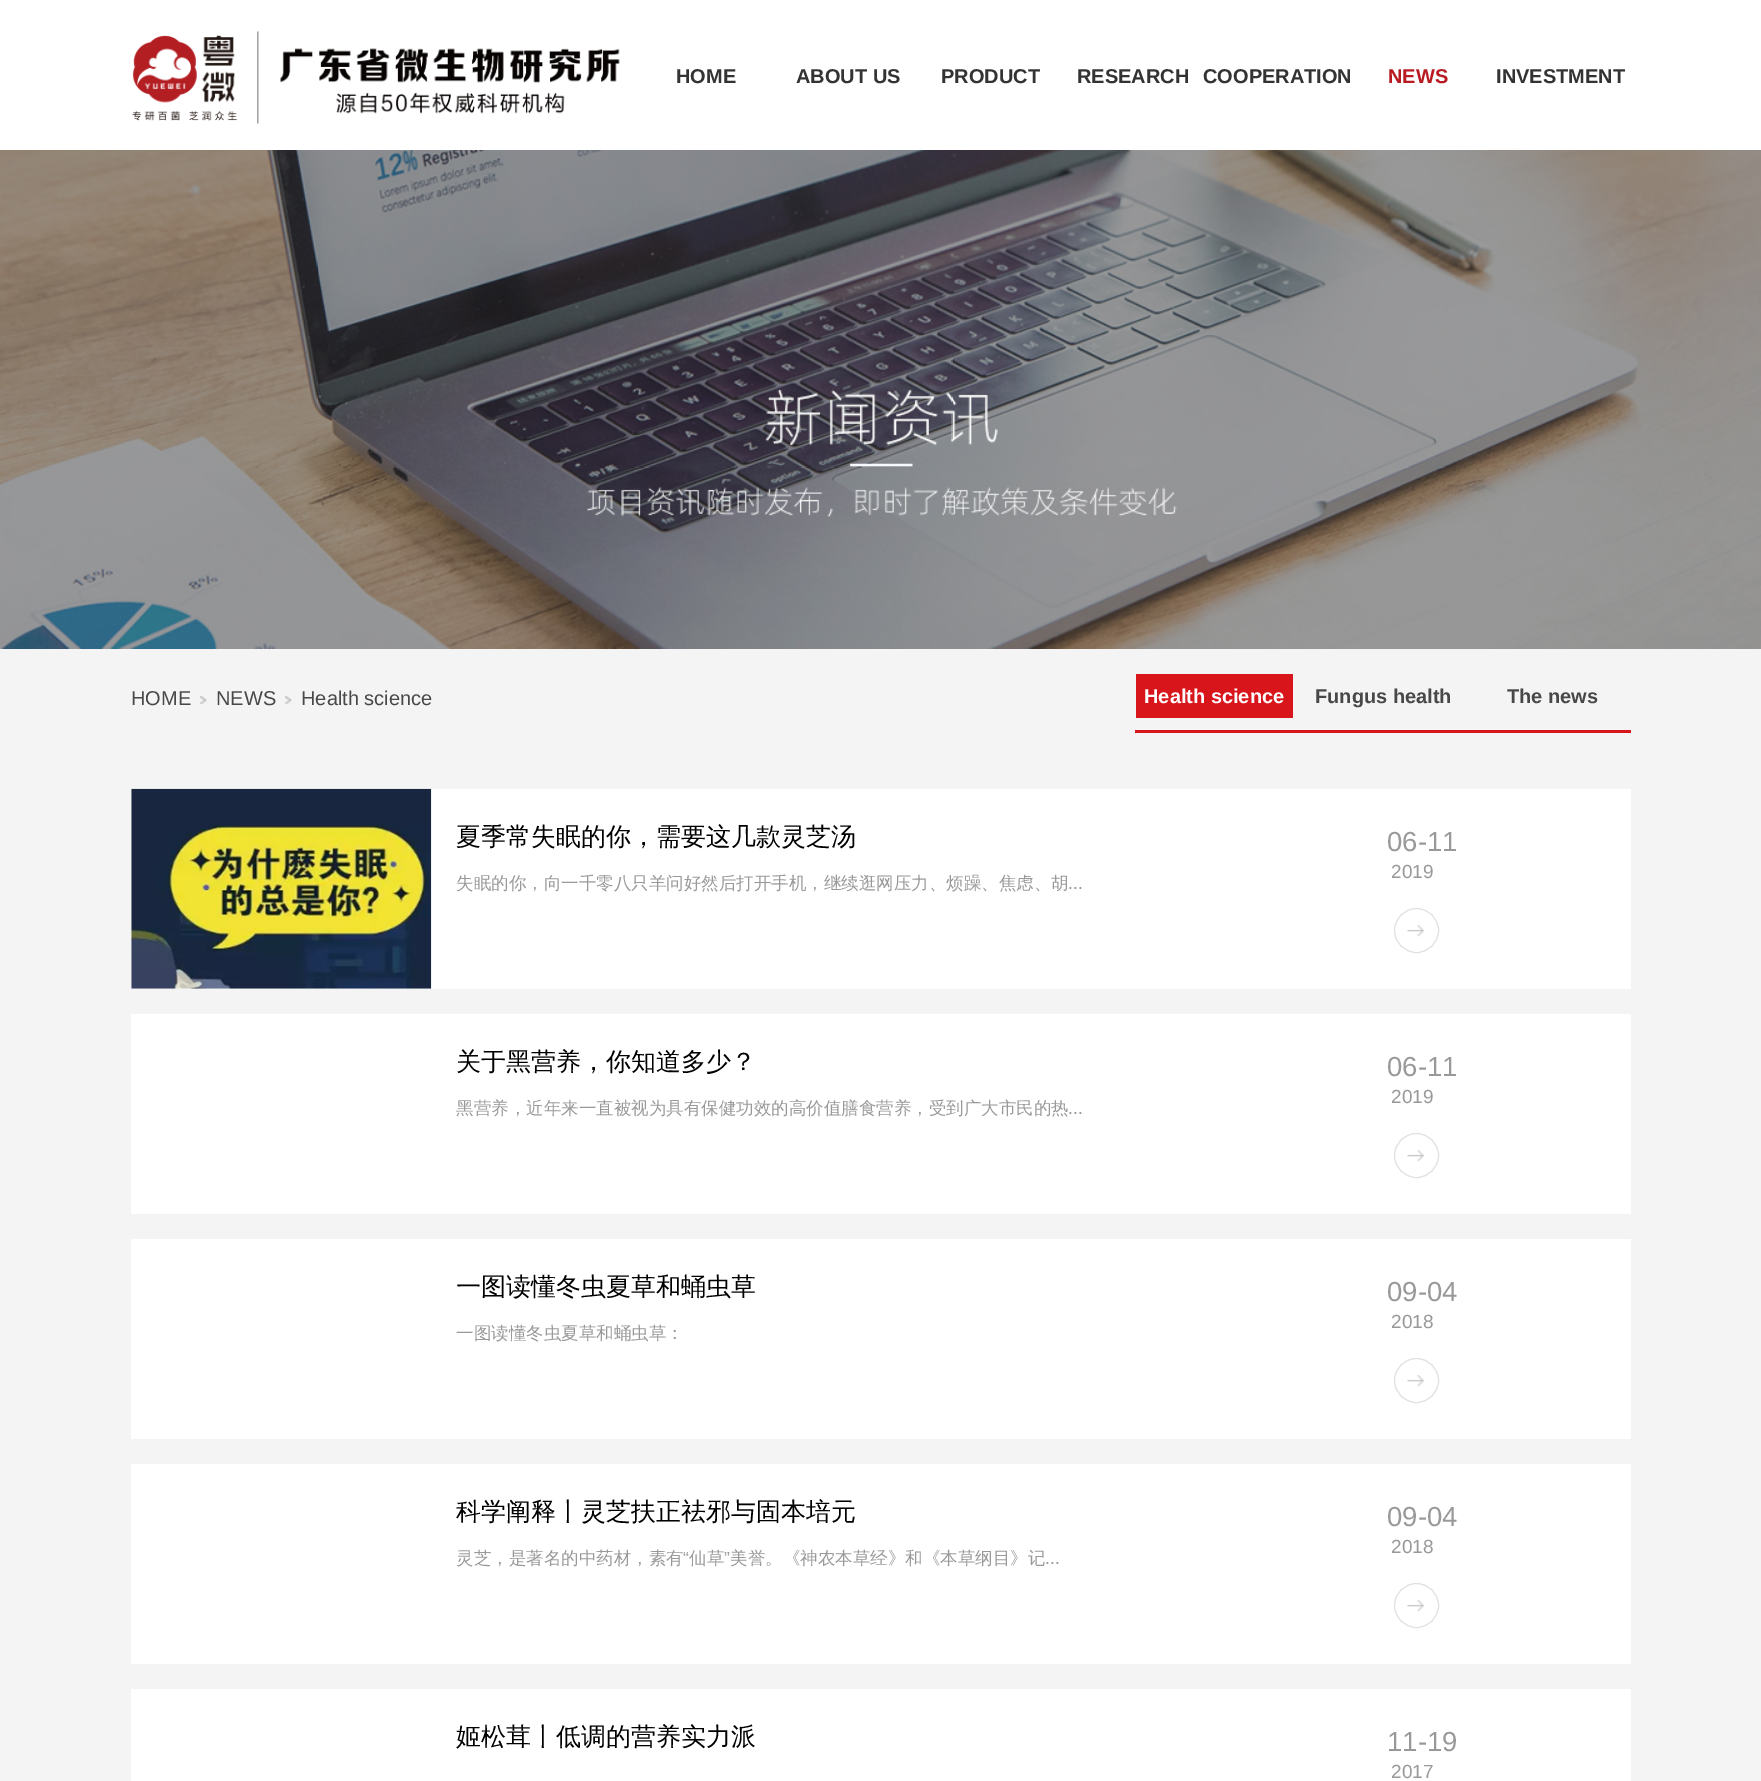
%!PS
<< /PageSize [1761 1781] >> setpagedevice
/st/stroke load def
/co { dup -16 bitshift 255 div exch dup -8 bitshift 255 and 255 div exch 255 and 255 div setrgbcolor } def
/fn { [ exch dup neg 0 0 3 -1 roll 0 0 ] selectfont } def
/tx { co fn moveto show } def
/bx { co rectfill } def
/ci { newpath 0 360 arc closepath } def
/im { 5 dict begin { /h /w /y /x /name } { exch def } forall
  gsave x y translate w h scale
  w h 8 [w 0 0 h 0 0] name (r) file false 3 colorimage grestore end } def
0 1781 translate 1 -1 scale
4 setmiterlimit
0 0 1761 1781 16#FFFFFF bx
(media/1.raw) 132 31 488 93 im
(media/2.raw) 0 150 1761 499 im
0 649 1761 1132 16#F4F4F4 bx
(media/3.raw) 200 696 7 8 im
(media/3.raw) 285 696 7 8 im
1136 674 157 44 16#D9151C bx
1135 730 496 3 16#D7161B bx
131 789 1500 200 16#FFFFFF bx
(media/4.raw) 131 788 301 201 im
(media/5.raw) 1407 925 17 12 im
16#E0E1E3 co
1416.5 930.5 22 ci st
131 1014 1500 200 16#FFFFFF bx
(media/5.raw) 1407 1150 17 12 im
16#E0E1E3 co
1416.5 1155.5 22 ci st
131 1239 1500 200 16#FFFFFF bx
(media/5.raw) 1407 1375 17 12 im
16#E0E1E3 co
1416.5 1380.5 22 ci st
131 1464 1500 200 16#FFFFFF bx
(media/5.raw) 1407 1600 17 12 im
16#E0E1E3 co
1416.5 1605.5 22 ci st
131 1689 1500 92 16#FFFFFF bx
(HOME) 676 83 /LiberationSans-Bold 20 16#333333 tx
(ABOUT US) 796 83 /LiberationSans-Bold 20 16#333333 tx
(PRODUCT) 941 83 /LiberationSans-Bold 20 16#333333 tx
(RESEARCH) 1077 83 /LiberationSans-Bold 20 16#333333 tx
(COOPERATION) 1203 83 /LiberationSans-Bold 20 16#333333 tx
(NEWS) 1388 83 /LiberationSans-Bold 20 16#B81C22 tx
(INVESTMENT) 1496 83 /LiberationSans-Bold 20 16#333333 tx
(HOME) 131 705 /LiberationSans-Regular 20 16#484848 tx
(NEWS) 216 705 /LiberationSans-Regular 20 16#484848 tx
(Health science) 301 705 /LiberationSans-Regular 20 16#484848 tx
(Health science) 1144 703 /LiberationSans-Bold 20 16#FFFFFF tx
(Fungus health) 1315 703 /LiberationSans-Bold 20 16#484848 tx
(The news) 1507 703 /LiberationSans-Bold 20 16#484848 tx
(夏季常失眠的你，需要这几款灵芝汤) 456 845 /WenQuanYiZenHei-Medium 25 16#000000 tx
(失眠的你，向一千零八只羊问好然后打开手机，继续逛网压力、烦躁、焦虑、胡) 456 889 /WenQuanYiZenHei-Medium 17.5 16#999999 tx
(...) 1068 889 /LiberationSans-Regular 17.5 16#999999 tx
(06-11) 1387 851 /LiberationSans-Regular 27.5 16#999999 tx
(2019) 1391 878 /LiberationSans-Regular 19 16#999999 tx
(关于黑营养，你知道多少？) 456 1070 /WenQuanYiZenHei-Medium 25 16#000000 tx
(黑营养，近年来一直被视为具有保健功效的高价值膳食营养，受到广大市民的热) 456 1114 /WenQuanYiZenHei-Medium 17.5 16#999999 tx
(...) 1068 1114 /LiberationSans-Regular 17.5 16#999999 tx
(06-11) 1387 1076 /LiberationSans-Regular 27.5 16#999999 tx
(2019) 1391 1103 /LiberationSans-Regular 19 16#999999 tx
(一图读懂冬虫夏草和蛹虫草) 456 1295 /WenQuanYiZenHei-Medium 25 16#000000 tx
(一图读懂冬虫夏草和蛹虫草：) 456 1339 /WenQuanYiZenHei-Medium 17.5 16#999999 tx
(09-04) 1387 1301 /LiberationSans-Regular 27.5 16#999999 tx
(2018) 1391 1328 /LiberationSans-Regular 19 16#999999 tx
(科学阐释丨灵芝扶正祛邪与固本培元) 456 1520 /WenQuanYiZenHei-Medium 25 16#000000 tx
(灵芝，是著名的中药材，素有) 456 1564 /WenQuanYiZenHei-Medium 17.5 16#999999 tx
(“) 683 1564 /LiberationSans-Regular 17.5 16#999999 tx
(仙草) 689 1564 /WenQuanYiZenHei-Medium 17.5 16#999999 tx
(”) 724 1564 /LiberationSans-Regular 17.5 16#999999 tx
(美誉。《神农本草经》和《本草纲目》记) 730 1564 /WenQuanYiZenHei-Medium 17.5 16#999999 tx
(...) 1045 1564 /LiberationSans-Regular 17.5 16#999999 tx
(09-04) 1387 1526 /LiberationSans-Regular 27.5 16#999999 tx
(2018) 1391 1553 /LiberationSans-Regular 19 16#999999 tx
(姬松茸丨低调的营养实力派) 456 1745 /WenQuanYiZenHei-Medium 25 16#000000 tx
(11-19) 1387 1751 /LiberationSans-Regular 27.5 16#999999 tx
(2017) 1391 1778 /LiberationSans-Regular 19 16#999999 tx
showpage
